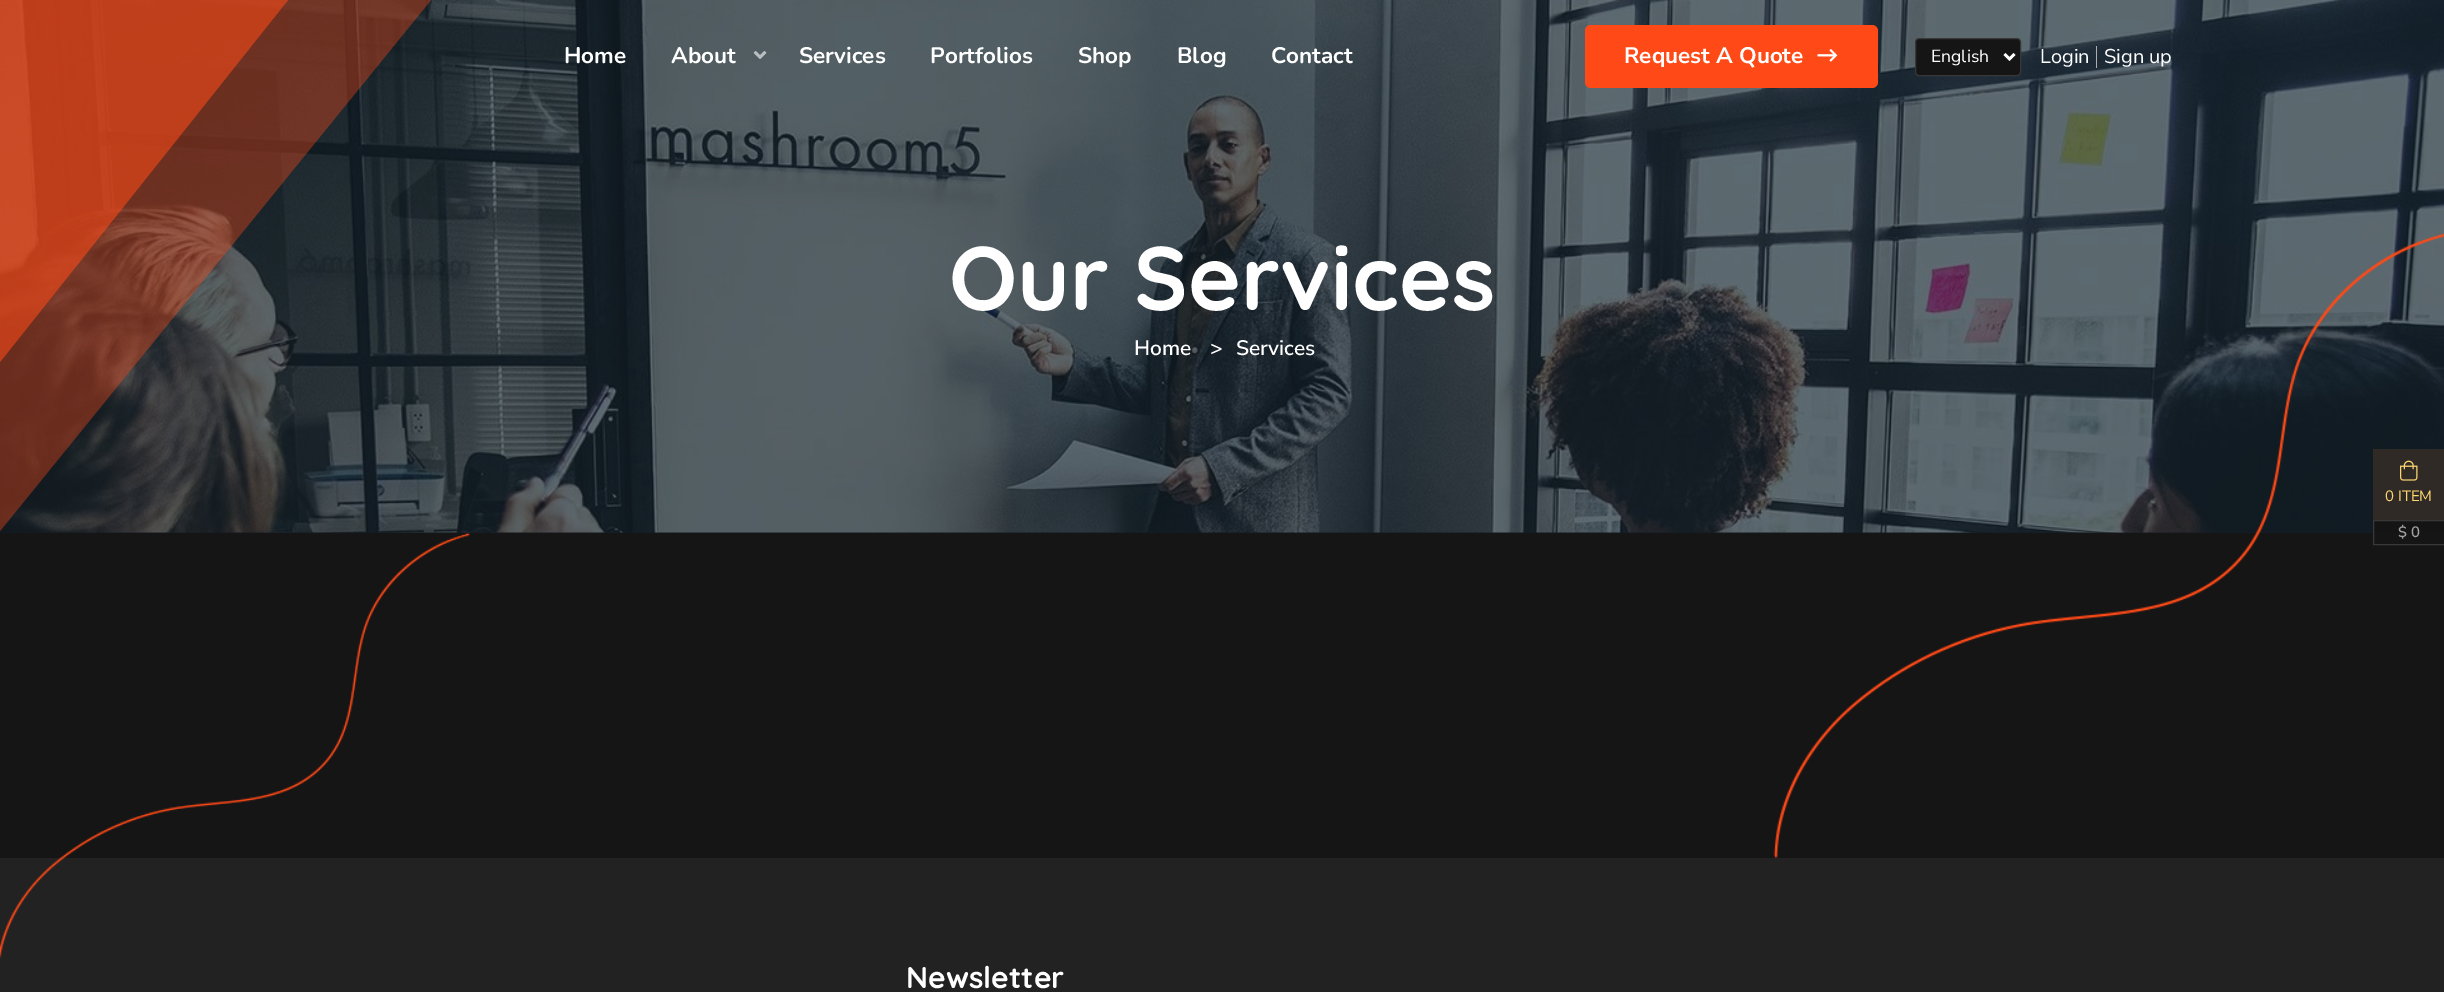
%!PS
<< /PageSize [2444 992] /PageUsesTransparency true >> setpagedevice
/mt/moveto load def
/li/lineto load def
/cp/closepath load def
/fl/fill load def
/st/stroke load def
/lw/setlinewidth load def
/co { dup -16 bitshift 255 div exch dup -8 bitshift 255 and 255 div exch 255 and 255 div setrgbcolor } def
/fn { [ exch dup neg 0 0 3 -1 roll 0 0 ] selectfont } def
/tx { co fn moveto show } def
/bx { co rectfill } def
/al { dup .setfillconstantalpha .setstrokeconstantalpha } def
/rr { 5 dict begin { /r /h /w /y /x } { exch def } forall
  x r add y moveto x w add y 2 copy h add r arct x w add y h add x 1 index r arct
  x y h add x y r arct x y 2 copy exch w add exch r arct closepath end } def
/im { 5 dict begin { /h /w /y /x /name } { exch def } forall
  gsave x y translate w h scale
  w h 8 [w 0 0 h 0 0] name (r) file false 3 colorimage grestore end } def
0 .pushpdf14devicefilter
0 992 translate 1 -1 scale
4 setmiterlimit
0 0 2444 992 16#151516 bx
0 532 2373 1 16#141D24 bx
(media/5.raw) 0 0 2444 533 im
(media/1.raw) 753 51 14 8 im
16#FF4A17 co
1585 25 293 63 6 rr fl
(media/2.raw) 1817 49 21 13 im
16#151516 co
1916 39 104 36 2.5 rr fl
16#383839 co
1915.5 38.5 105 37 3.5 rr st
16#FFFFFF co
2.5 lw
2004.5 54 mt 2009.5 59 li 2014.5 54 li st
2096 46 1 22 16#AEAEAE bx
0 858 2444 134 16#222222 bx
(media/3.raw) 0 532 470 427 im
(media/4.raw) 1773 233 671 625 im
0.57 al
16#FF4A17 co
0 0 mt 0 362 li 288 0 li cp fl
0.37 al
0 0 mt 0 531 li 431 0 li cp fl
1 al
2373 449 71 71 16#302A27 bx
(media/6.raw) 2400 460 18 21 im
2374 521 70 12 16#141415 bx
16#383839 co
1 lw
2373.5 520.5 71 24 rectstroke
(Home) 564 63 /Nunito-Bold 22.5 16#FFFFFF tx
(About) 671 63 /Nunito-Bold 22.5 16#FFFFFF tx
(Services) 799 63 /Nunito-Bold 22.5 16#FFFFFF tx
(Portfolios) 930 63 /Nunito-Bold 22.5 16#FFFFFF tx
(Shop) 1078 63 /Nunito-Bold 22.5 16#FFFFFF tx
(Blog) 1177 63 /Nunito-Bold 22.5 16#FFFFFF tx
(Contact) 1271 63 /Nunito-Bold 22.5 16#FFFFFF tx
(Request A Quote) 1624 63 /NunitoSans-Bold 22.5 16#FFFFFF tx
(English) 1931 62 /NunitoSans-Regular 17.5 16#FFFFFF tx
(Login) 2040 63 /NunitoSans-Regular 20 16#FFFFFF tx
(Sign up) 2104 63 /NunitoSans-Regular 20 16#FFFFFF tx
(Our Services) 949 310 /Quicksand-Bold 90 16#FFFFFF tx
(Home) 1134 355 /NunitoSans-SemiBold 21 16#FFFFFF tx
(>) 1210 355 /NunitoSans-SemiBold 21 16#FFFFFF tx
(Services) 1236 355 /NunitoSans-SemiBold 21 16#FFFFFF tx
(0 ITEM) 2385 501 /NunitoSans-Regular 15 16#FDD670 tx
($ 0) 2398 537 /NunitoSans-SemiBold 15 16#A1A1A1 tx
(Newsletter) 906 988 /Quicksand-Bold 30 16#FFFFFF tx
.poppdf14devicefilter showpage
